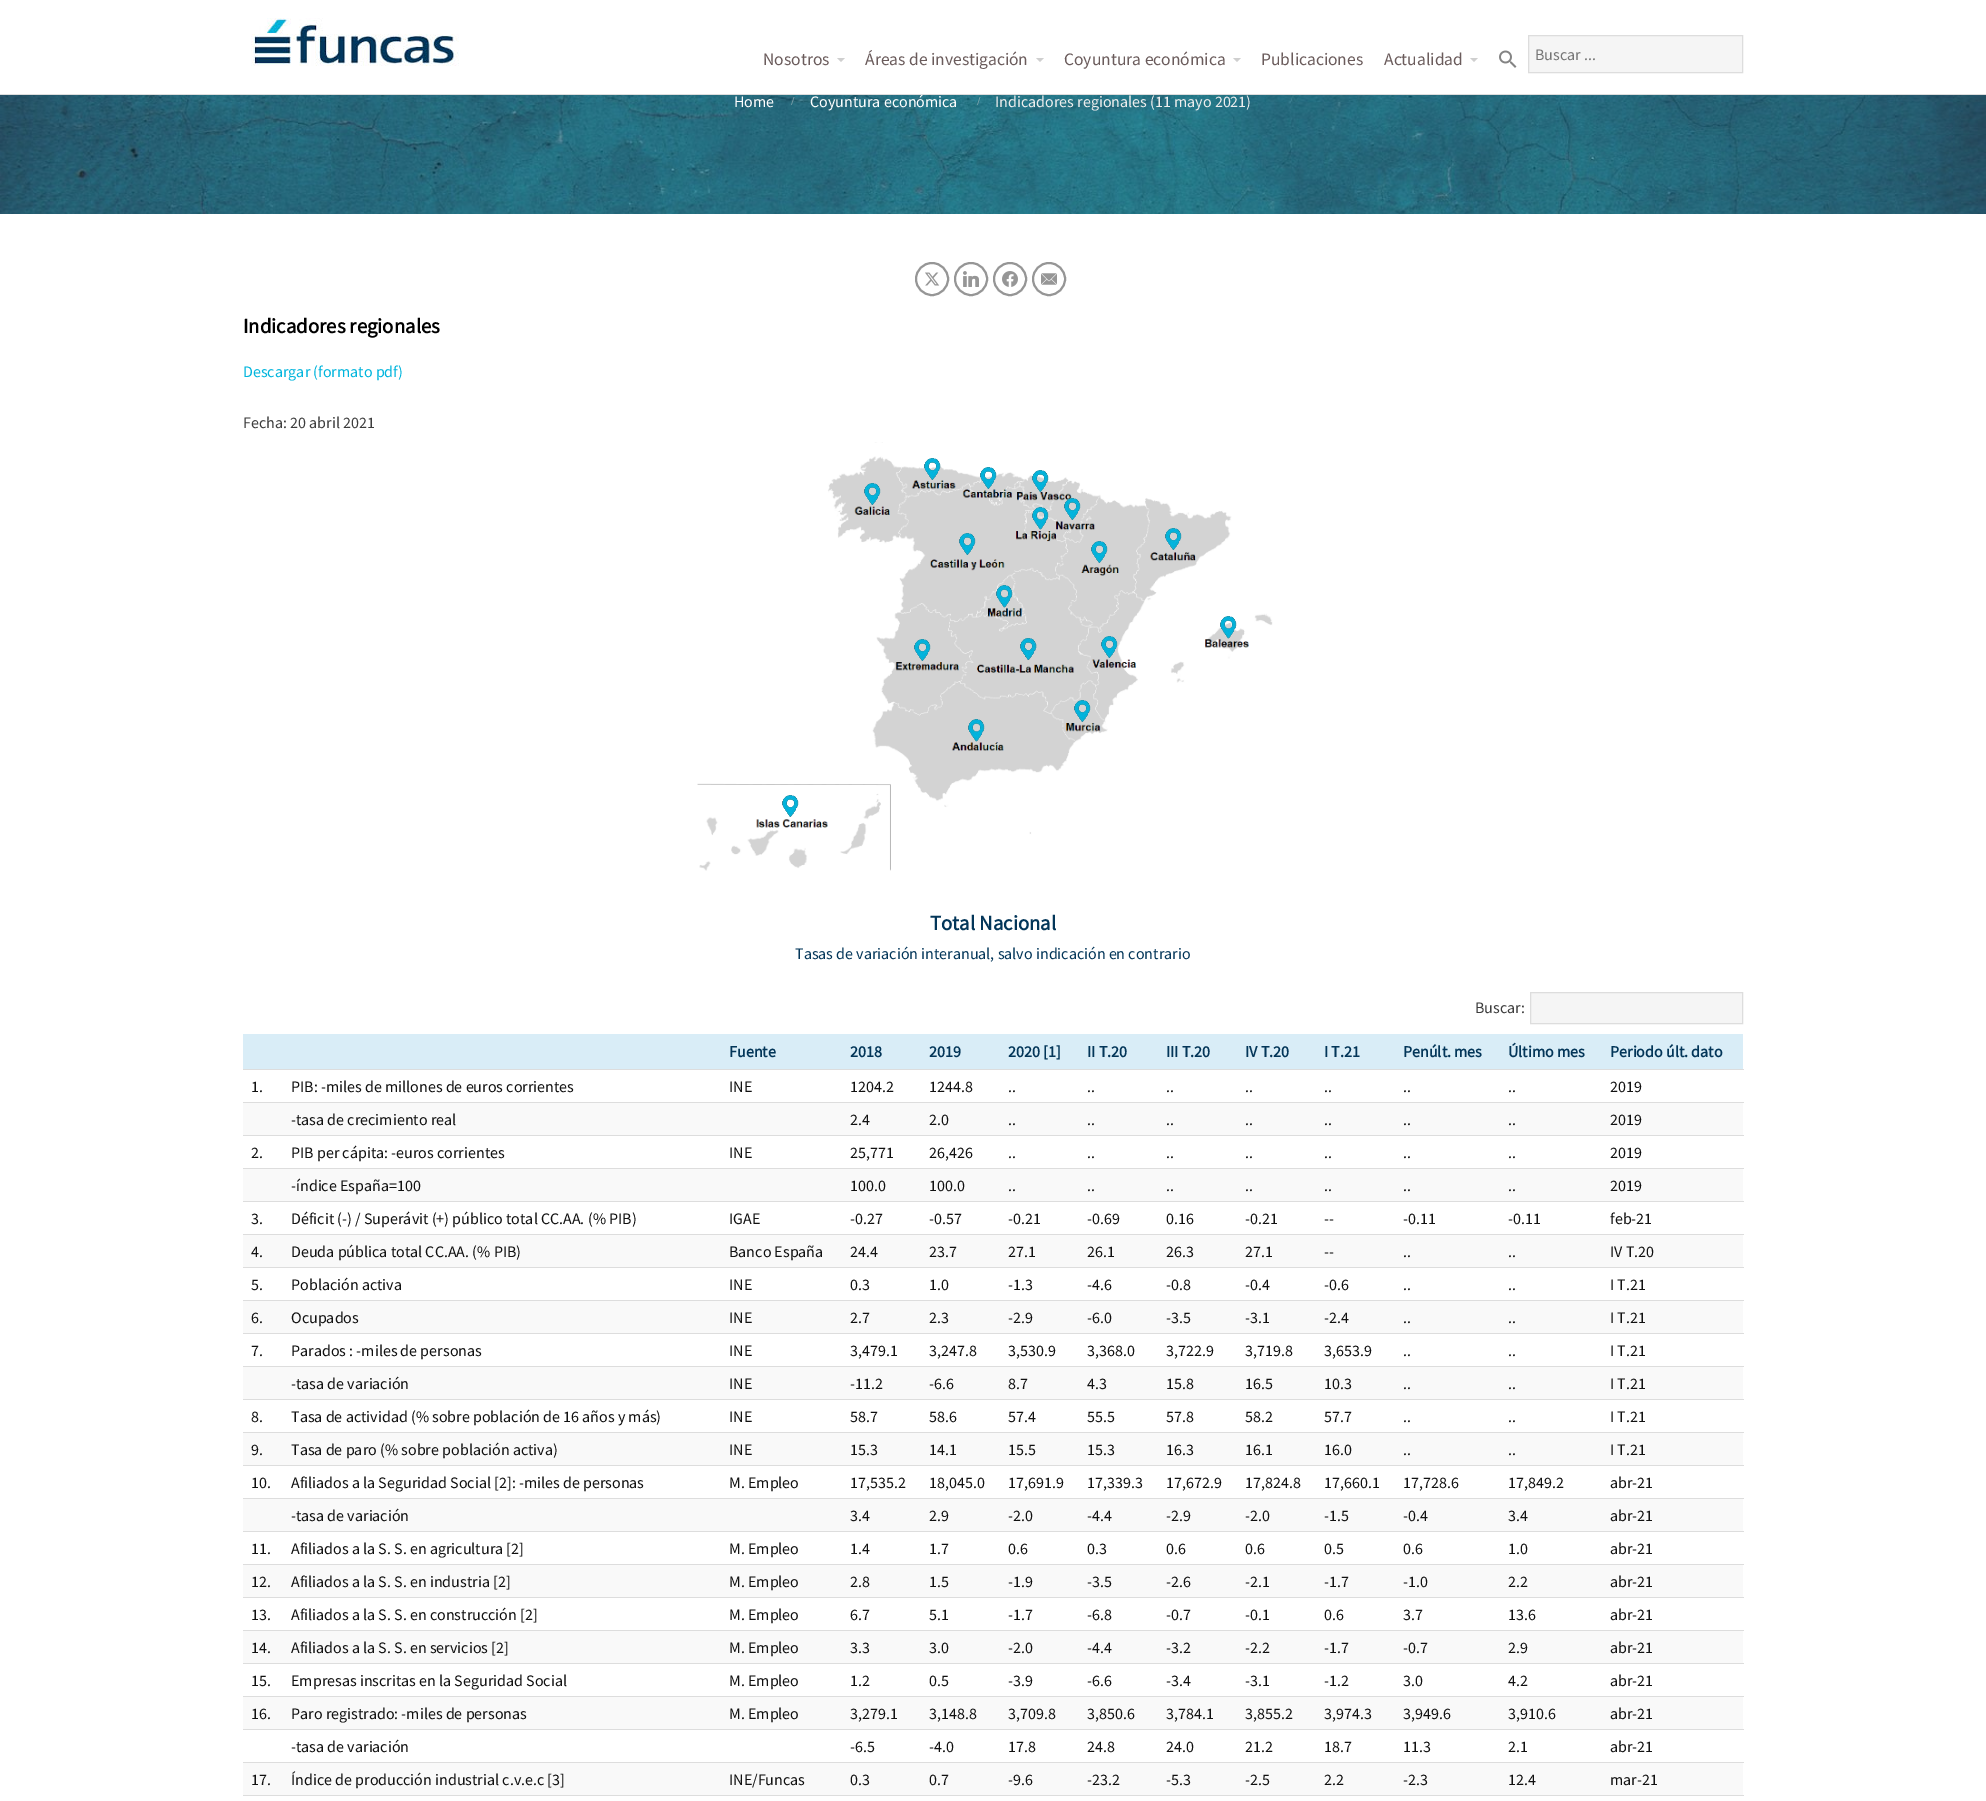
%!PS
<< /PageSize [1986 1801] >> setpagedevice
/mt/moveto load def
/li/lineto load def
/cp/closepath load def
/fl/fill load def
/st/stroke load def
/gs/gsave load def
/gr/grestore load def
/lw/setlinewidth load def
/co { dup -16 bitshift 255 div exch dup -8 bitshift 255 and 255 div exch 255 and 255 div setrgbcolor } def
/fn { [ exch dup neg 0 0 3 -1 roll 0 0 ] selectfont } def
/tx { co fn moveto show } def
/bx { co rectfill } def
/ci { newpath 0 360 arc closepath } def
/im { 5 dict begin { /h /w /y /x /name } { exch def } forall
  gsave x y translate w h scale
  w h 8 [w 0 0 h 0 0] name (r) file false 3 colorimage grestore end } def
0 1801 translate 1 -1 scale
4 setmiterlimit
0 0 1986 1801 16#FFFFFF bx
(media/1.raw) 251 18 208 48 im
16#CFCFCF co
837 58 mt 845 58 li 841 62 li cp fl
1036 58 mt 1044 58 li 1040 62 li cp fl
1233 58 mt 1241 58 li 1237 62 li cp fl
1470 58 mt 1478 58 li 1474 62 li cp fl
(media/2.raw) 1499 50 18 18 im
16#F5F5F5 co
1528.5 35.5 mt 1742.5 35.5 li 1742.5 72.5 li 1528.5 72.5 li cp gs fl gr
16#DDDDDD co
st
(media/3.raw) 0 95 1986 119 im
16#969696 co
2 lw
932 279 16 ci st
(media/4.raw) 925 272 15 14 im
971 279 16 ci st
(media/5.raw) 963 271 16 16 im
1010 279 16 ci st
(media/6.raw) 1002 271 16 16 im
1049 279 16 ci st
(media/7.raw) 1041 273 16 12 im
(media/8.raw) 697 442 576 429 im
(media/9.raw) 864 483 17 22 im
(media/10.raw) 924 458 17 22 im
(media/11.raw) 980 467 17 22 im
(media/12.raw) 1032 470 17 22 im
(media/13.raw) 1032 507 17 23 im
(media/14.raw) 1064 498 17 22 im
(media/15.raw) 959 533 17 22 im
(media/15.raw) 1091 541 17 22 im
(media/15.raw) 1165 528 17 22 im
(media/16.raw) 996 585 17 23 im
(media/17.raw) 1220 616 17 23 im
(media/18.raw) 1020 638 17 22 im
(media/19.raw) 1101 636 17 22 im
(media/15.raw) 914 639 17 22 im
(media/20.raw) 1020 638 17 22 im
(media/21.raw) 1074 700 17 22 im
(media/22.raw) 968 719 17 23 im
(media/23.raw) 782 795 17 22 im
16#F5F5F5 co
1530.5 992.5 mt 1742.5 992.5 li 1742.5 1023.5 li 1530.5 1023.5 li cp gs fl gr
16#DDDDDD co
1 lw
st
243 1034 1500 35 16#D9EDF7 bx
243 1069 1501 1 16#DDDDDD bx
243 1103 1500 32 16#F9F9F9 bx
243 1102 1501 1 16#DDDDDD bx
243 1135 1501 1 16#DDDDDD bx
243 1169 1500 32 16#F9F9F9 bx
243 1168 1501 1 16#DDDDDD bx
243 1201 1501 1 16#DDDDDD bx
243 1235 1500 32 16#F9F9F9 bx
243 1234 1501 1 16#DDDDDD bx
243 1267 1501 1 16#DDDDDD bx
243 1301 1500 32 16#F9F9F9 bx
243 1300 1501 1 16#DDDDDD bx
243 1333 1501 1 16#DDDDDD bx
243 1367 1500 32 16#F9F9F9 bx
243 1366 1501 1 16#DDDDDD bx
243 1399 1501 1 16#DDDDDD bx
243 1433 1500 32 16#F9F9F9 bx
243 1432 1501 1 16#DDDDDD bx
243 1465 1501 1 16#DDDDDD bx
243 1499 1500 32 16#F9F9F9 bx
243 1498 1501 1 16#DDDDDD bx
243 1531 1501 1 16#DDDDDD bx
243 1565 1500 32 16#F9F9F9 bx
243 1564 1501 1 16#DDDDDD bx
243 1597 1501 1 16#DDDDDD bx
243 1631 1500 32 16#F9F9F9 bx
243 1630 1501 1 16#DDDDDD bx
243 1663 1501 1 16#DDDDDD bx
243 1697 1500 32 16#F9F9F9 bx
243 1696 1501 1 16#DDDDDD bx
243 1729 1501 1 16#DDDDDD bx
243 1763 1500 32 16#F9F9F9 bx
243 1762 1501 1 16#DDDDDD bx
243 1795 1501 1 16#DDDDDD bx
(Nosotros) 763 65 /SourceSansPro-Regular 17.5 16#6B5C5C tx
(Áreas de investigación) 865 65 /SourceSansPro-Regular 17.5 16#6B5C5C tx
(Coyuntura económica) 1064 65 /SourceSansPro-Regular 17.5 16#6B5C5C tx
(Publicaciones) 1261 65 /SourceSansPro-Regular 17.5 16#6B5C5C tx
(Actualidad) 1384 65 /SourceSansPro-Regular 17.5 16#6B5C5C tx
(Buscar ...) 1535 60 /SourceSansPro-Regular 16 16#757575 tx
(Home) 734 107 /SourceSansPro-Regular 16 16#FFFFFF tx
(/) 791 105 /LiberationSerif-Bold 12 16#82A2AB tx
(Coyuntura económica) 810 107 /SourceSansPro-Regular 16 16#FFFFFF tx
0 94 1986 1 16#DDDDDD bx
(/) 977 105 /LiberationSerif-Bold 12 16#81A9B1 tx
(Indicadores regionales \(11 mayo 2021\)) 995 107 /SourceSansPro-Regular 16 16#EEEEEE tx
(Indicadores regionales) 243 333 /SourceSansPro-Bold 20.75 16#000000 tx
(Descargar \(formato pdf\)) 243 377 /SourceSansPro-Regular 16 16#00B5DD tx
(Fecha: 20 abril 2021) 243 428 /SourceSansPro-Regular 16 16#3D3D3D tx
(Total Nacional) 930 930 /SourceSansPro-Bold 20.75 16#033659 tx
(Tasas de variación interanual, salvo indicación en contrario) 795 959 /SourceSansPro-Regular 16 16#033659 tx
(Buscar:) 1475 1013 /SourceSansPro-Regular 16 16#3D3D3D tx
(Fuente) 729 1057 /SourceSansPro-Bold 16 16#033659 tx
(2018) 850 1057 /SourceSansPro-Bold 16 16#033659 tx
(2019) 929 1057 /SourceSansPro-Bold 16 16#033659 tx
(2020 [1]) 1008 1057 /SourceSansPro-Bold 16 16#033659 tx
(II T.20) 1087 1057 /SourceSansPro-Bold 16 16#033659 tx
(III T.20) 1166 1057 /SourceSansPro-Bold 16 16#033659 tx
(IV T.20) 1245 1057 /SourceSansPro-Bold 16 16#033659 tx
(I T.21) 1324 1057 /SourceSansPro-Bold 16 16#033659 tx
(Penúlt. mes) 1403 1057 /SourceSansPro-Bold 16 16#033659 tx
(Último mes) 1508 1057 /SourceSansPro-Bold 16 16#033659 tx
(Periodo últ. dato) 1610 1057 /SourceSansPro-Bold 16 16#033659 tx
(1.) 251 1092 /SourceSansPro-Regular 16 16#111111 tx
(PIB: -miles de millones de euros corrientes) 291 1092 /SourceSansPro-Regular 16 16#111111 tx
(INE) 729 1092 /SourceSansPro-Regular 16 16#111111 tx
(1204.2) 850 1092 /SourceSansPro-Regular 16 16#111111 tx
(1244.8) 929 1092 /SourceSansPro-Regular 16 16#111111 tx
(..) 1008 1092 /SourceSansPro-Regular 16 16#111111 tx
(..) 1087 1092 /SourceSansPro-Regular 16 16#111111 tx
(..) 1166 1092 /SourceSansPro-Regular 16 16#111111 tx
(..) 1245 1092 /SourceSansPro-Regular 16 16#111111 tx
(..) 1324 1092 /SourceSansPro-Regular 16 16#111111 tx
(..) 1403 1092 /SourceSansPro-Regular 16 16#111111 tx
(..) 1508 1092 /SourceSansPro-Regular 16 16#111111 tx
(2019) 1610 1092 /SourceSansPro-Regular 16 16#111111 tx
(-tasa de crecimiento real) 291 1125 /SourceSansPro-Regular 16 16#111111 tx
(2.4) 850 1125 /SourceSansPro-Regular 16 16#111111 tx
(2.0) 929 1125 /SourceSansPro-Regular 16 16#111111 tx
(..) 1008 1125 /SourceSansPro-Regular 16 16#111111 tx
(..) 1087 1125 /SourceSansPro-Regular 16 16#111111 tx
(..) 1166 1125 /SourceSansPro-Regular 16 16#111111 tx
(..) 1245 1125 /SourceSansPro-Regular 16 16#111111 tx
(..) 1324 1125 /SourceSansPro-Regular 16 16#111111 tx
(..) 1403 1125 /SourceSansPro-Regular 16 16#111111 tx
(..) 1508 1125 /SourceSansPro-Regular 16 16#111111 tx
(2019) 1610 1125 /SourceSansPro-Regular 16 16#111111 tx
(2.) 251 1158 /SourceSansPro-Regular 16 16#111111 tx
(PIB per cápita: -euros corrientes) 291 1158 /SourceSansPro-Regular 16 16#111111 tx
(INE) 729 1158 /SourceSansPro-Regular 16 16#111111 tx
(25,771) 850 1158 /SourceSansPro-Regular 16 16#111111 tx
(26,426) 929 1158 /SourceSansPro-Regular 16 16#111111 tx
(..) 1008 1158 /SourceSansPro-Regular 16 16#111111 tx
(..) 1087 1158 /SourceSansPro-Regular 16 16#111111 tx
(..) 1166 1158 /SourceSansPro-Regular 16 16#111111 tx
(..) 1245 1158 /SourceSansPro-Regular 16 16#111111 tx
(..) 1324 1158 /SourceSansPro-Regular 16 16#111111 tx
(..) 1403 1158 /SourceSansPro-Regular 16 16#111111 tx
(..) 1508 1158 /SourceSansPro-Regular 16 16#111111 tx
(2019) 1610 1158 /SourceSansPro-Regular 16 16#111111 tx
(-índice España=100) 291 1191 /SourceSansPro-Regular 16 16#111111 tx
(100.0) 850 1191 /SourceSansPro-Regular 16 16#111111 tx
(100.0) 929 1191 /SourceSansPro-Regular 16 16#111111 tx
(..) 1008 1191 /SourceSansPro-Regular 16 16#111111 tx
(..) 1087 1191 /SourceSansPro-Regular 16 16#111111 tx
(..) 1166 1191 /SourceSansPro-Regular 16 16#111111 tx
(..) 1245 1191 /SourceSansPro-Regular 16 16#111111 tx
(..) 1324 1191 /SourceSansPro-Regular 16 16#111111 tx
(..) 1403 1191 /SourceSansPro-Regular 16 16#111111 tx
(..) 1508 1191 /SourceSansPro-Regular 16 16#111111 tx
(2019) 1610 1191 /SourceSansPro-Regular 16 16#111111 tx
(3.) 251 1224 /SourceSansPro-Regular 16 16#111111 tx
(Déficit \(-\) / Superávit \(+\) público total CC.AA. \(% PIB\)) 291 1224 /SourceSansPro-Regular 16 16#111111 tx
(IGAE) 729 1224 /SourceSansPro-Regular 16 16#111111 tx
(-0.27) 850 1224 /SourceSansPro-Regular 16 16#111111 tx
(-0.57) 929 1224 /SourceSansPro-Regular 16 16#111111 tx
(-0.21) 1008 1224 /SourceSansPro-Regular 16 16#111111 tx
(-0.69) 1087 1224 /SourceSansPro-Regular 16 16#111111 tx
(0.16) 1166 1224 /SourceSansPro-Regular 16 16#111111 tx
(-0.21) 1245 1224 /SourceSansPro-Regular 16 16#111111 tx
(--) 1324 1224 /SourceSansPro-Regular 16 16#111111 tx
(-0.11) 1403 1224 /SourceSansPro-Regular 16 16#111111 tx
(-0.11) 1508 1224 /SourceSansPro-Regular 16 16#111111 tx
(feb-21) 1610 1224 /SourceSansPro-Regular 16 16#111111 tx
(4.) 251 1257 /SourceSansPro-Regular 16 16#111111 tx
(Deuda pública total CC.AA. \(% PIB\)) 291 1257 /SourceSansPro-Regular 16 16#111111 tx
(Banco España) 729 1257 /SourceSansPro-Regular 16 16#111111 tx
(24.4) 850 1257 /SourceSansPro-Regular 16 16#111111 tx
(23.7) 929 1257 /SourceSansPro-Regular 16 16#111111 tx
(27.1) 1008 1257 /SourceSansPro-Regular 16 16#111111 tx
(26.1) 1087 1257 /SourceSansPro-Regular 16 16#111111 tx
(26.3) 1166 1257 /SourceSansPro-Regular 16 16#111111 tx
(27.1) 1245 1257 /SourceSansPro-Regular 16 16#111111 tx
(--) 1324 1257 /SourceSansPro-Regular 16 16#111111 tx
(IV T.20) 1610 1257 /SourceSansPro-Regular 16 16#111111 tx
(..) 1403 1257 /SourceSansPro-Regular 16 16#111111 tx
(..) 1508 1257 /SourceSansPro-Regular 16 16#111111 tx
(5.) 251 1290 /SourceSansPro-Regular 16 16#111111 tx
(Población activa) 291 1290 /SourceSansPro-Regular 16 16#111111 tx
(INE) 729 1290 /SourceSansPro-Regular 16 16#111111 tx
(0.3) 850 1290 /SourceSansPro-Regular 16 16#111111 tx
(1.0) 929 1290 /SourceSansPro-Regular 16 16#111111 tx
(-1.3) 1008 1290 /SourceSansPro-Regular 16 16#111111 tx
(-4.6) 1087 1290 /SourceSansPro-Regular 16 16#111111 tx
(-0.8) 1166 1290 /SourceSansPro-Regular 16 16#111111 tx
(-0.4) 1245 1290 /SourceSansPro-Regular 16 16#111111 tx
(-0.6) 1324 1290 /SourceSansPro-Regular 16 16#111111 tx
(..) 1403 1290 /SourceSansPro-Regular 16 16#111111 tx
(..) 1508 1290 /SourceSansPro-Regular 16 16#111111 tx
(I T.21) 1610 1290 /SourceSansPro-Regular 16 16#111111 tx
(6.) 251 1323 /SourceSansPro-Regular 16 16#111111 tx
(Ocupados) 291 1323 /SourceSansPro-Regular 16 16#111111 tx
(INE) 729 1323 /SourceSansPro-Regular 16 16#111111 tx
(2.7) 850 1323 /SourceSansPro-Regular 16 16#111111 tx
(2.3) 929 1323 /SourceSansPro-Regular 16 16#111111 tx
(-2.9) 1008 1323 /SourceSansPro-Regular 16 16#111111 tx
(-6.0) 1087 1323 /SourceSansPro-Regular 16 16#111111 tx
(-3.5) 1166 1323 /SourceSansPro-Regular 16 16#111111 tx
(-3.1) 1245 1323 /SourceSansPro-Regular 16 16#111111 tx
(-2.4) 1324 1323 /SourceSansPro-Regular 16 16#111111 tx
(..) 1403 1323 /SourceSansPro-Regular 16 16#111111 tx
(..) 1508 1323 /SourceSansPro-Regular 16 16#111111 tx
(I T.21) 1610 1323 /SourceSansPro-Regular 16 16#111111 tx
(7.) 251 1356 /SourceSansPro-Regular 16 16#111111 tx
(Parados : -miles de personas) 291 1356 /SourceSansPro-Regular 16 16#111111 tx
(INE) 729 1356 /SourceSansPro-Regular 16 16#111111 tx
(3,479.1) 850 1356 /SourceSansPro-Regular 16 16#111111 tx
(3,247.8) 929 1356 /SourceSansPro-Regular 16 16#111111 tx
(3,530.9) 1008 1356 /SourceSansPro-Regular 16 16#111111 tx
(3,368.0) 1087 1356 /SourceSansPro-Regular 16 16#111111 tx
(3,722.9) 1166 1356 /SourceSansPro-Regular 16 16#111111 tx
(3,719.8) 1245 1356 /SourceSansPro-Regular 16 16#111111 tx
(3,653.9) 1324 1356 /SourceSansPro-Regular 16 16#111111 tx
(..) 1403 1356 /SourceSansPro-Regular 16 16#111111 tx
(..) 1508 1356 /SourceSansPro-Regular 16 16#111111 tx
(I T.21) 1610 1356 /SourceSansPro-Regular 16 16#111111 tx
(-tasa de variación) 291 1389 /SourceSansPro-Regular 16 16#111111 tx
(INE) 729 1389 /SourceSansPro-Regular 16 16#111111 tx
(-11.2) 850 1389 /SourceSansPro-Regular 16 16#111111 tx
(-6.6) 929 1389 /SourceSansPro-Regular 16 16#111111 tx
(8.7) 1008 1389 /SourceSansPro-Regular 16 16#111111 tx
(4.3) 1087 1389 /SourceSansPro-Regular 16 16#111111 tx
(15.8) 1166 1389 /SourceSansPro-Regular 16 16#111111 tx
(16.5) 1245 1389 /SourceSansPro-Regular 16 16#111111 tx
(10.3) 1324 1389 /SourceSansPro-Regular 16 16#111111 tx
(..) 1403 1389 /SourceSansPro-Regular 16 16#111111 tx
(..) 1508 1389 /SourceSansPro-Regular 16 16#111111 tx
(I T.21) 1610 1389 /SourceSansPro-Regular 16 16#111111 tx
(8.) 251 1422 /SourceSansPro-Regular 16 16#111111 tx
(Tasa de actividad \(% sobre población de 16 años y más\)) 291 1422 /SourceSansPro-Regular 16 16#111111 tx
(INE) 729 1422 /SourceSansPro-Regular 16 16#111111 tx
(58.7) 850 1422 /SourceSansPro-Regular 16 16#111111 tx
(58.6) 929 1422 /SourceSansPro-Regular 16 16#111111 tx
(57.4) 1008 1422 /SourceSansPro-Regular 16 16#111111 tx
(55.5) 1087 1422 /SourceSansPro-Regular 16 16#111111 tx
(57.8) 1166 1422 /SourceSansPro-Regular 16 16#111111 tx
(58.2) 1245 1422 /SourceSansPro-Regular 16 16#111111 tx
(57.7) 1324 1422 /SourceSansPro-Regular 16 16#111111 tx
(..) 1403 1422 /SourceSansPro-Regular 16 16#111111 tx
(..) 1508 1422 /SourceSansPro-Regular 16 16#111111 tx
(I T.21) 1610 1422 /SourceSansPro-Regular 16 16#111111 tx
(9.) 251 1455 /SourceSansPro-Regular 16 16#111111 tx
(Tasa de paro \(% sobre población activa\)) 291 1455 /SourceSansPro-Regular 16 16#111111 tx
(INE) 729 1455 /SourceSansPro-Regular 16 16#111111 tx
(15.3) 850 1455 /SourceSansPro-Regular 16 16#111111 tx
(14.1) 929 1455 /SourceSansPro-Regular 16 16#111111 tx
(15.5) 1008 1455 /SourceSansPro-Regular 16 16#111111 tx
(15.3) 1087 1455 /SourceSansPro-Regular 16 16#111111 tx
(16.3) 1166 1455 /SourceSansPro-Regular 16 16#111111 tx
(16.1) 1245 1455 /SourceSansPro-Regular 16 16#111111 tx
(16.0) 1324 1455 /SourceSansPro-Regular 16 16#111111 tx
(..) 1403 1455 /SourceSansPro-Regular 16 16#111111 tx
(..) 1508 1455 /SourceSansPro-Regular 16 16#111111 tx
(I T.21) 1610 1455 /SourceSansPro-Regular 16 16#111111 tx
(10.) 251 1488 /SourceSansPro-Regular 16 16#111111 tx
(Afiliados a la Seguridad Social [2]: -miles de personas) 291 1488 /SourceSansPro-Regular 16 16#111111 tx
(M. Empleo) 729 1488 /SourceSansPro-Regular 16 16#111111 tx
(17,535.2) 850 1488 /SourceSansPro-Regular 16 16#111111 tx
(18,045.0) 929 1488 /SourceSansPro-Regular 16 16#111111 tx
(17,691.9) 1008 1488 /SourceSansPro-Regular 16 16#111111 tx
(17,339.3) 1087 1488 /SourceSansPro-Regular 16 16#111111 tx
(17,672.9) 1166 1488 /SourceSansPro-Regular 16 16#111111 tx
(17,824.8) 1245 1488 /SourceSansPro-Regular 16 16#111111 tx
(17,660.1) 1324 1488 /SourceSansPro-Regular 16 16#111111 tx
(17,728.6) 1403 1488 /SourceSansPro-Regular 16 16#111111 tx
(17,849.2) 1508 1488 /SourceSansPro-Regular 16 16#111111 tx
(abr-21) 1610 1488 /SourceSansPro-Regular 16 16#111111 tx
(-tasa de variación) 291 1521 /SourceSansPro-Regular 16 16#111111 tx
(3.4) 850 1521 /SourceSansPro-Regular 16 16#111111 tx
(2.9) 929 1521 /SourceSansPro-Regular 16 16#111111 tx
(-2.0) 1008 1521 /SourceSansPro-Regular 16 16#111111 tx
(-4.4) 1087 1521 /SourceSansPro-Regular 16 16#111111 tx
(-2.9) 1166 1521 /SourceSansPro-Regular 16 16#111111 tx
(-2.0) 1245 1521 /SourceSansPro-Regular 16 16#111111 tx
(-1.5) 1324 1521 /SourceSansPro-Regular 16 16#111111 tx
(-0.4) 1403 1521 /SourceSansPro-Regular 16 16#111111 tx
(3.4) 1508 1521 /SourceSansPro-Regular 16 16#111111 tx
(abr-21) 1610 1521 /SourceSansPro-Regular 16 16#111111 tx
(11.) 251 1554 /SourceSansPro-Regular 16 16#111111 tx
(Afiliados a la S. S. en agricultura [2]) 291 1554 /SourceSansPro-Regular 16 16#111111 tx
(M. Empleo) 729 1554 /SourceSansPro-Regular 16 16#111111 tx
(1.4) 850 1554 /SourceSansPro-Regular 16 16#111111 tx
(1.7) 929 1554 /SourceSansPro-Regular 16 16#111111 tx
(0.6) 1008 1554 /SourceSansPro-Regular 16 16#111111 tx
(0.3) 1087 1554 /SourceSansPro-Regular 16 16#111111 tx
(0.6) 1166 1554 /SourceSansPro-Regular 16 16#111111 tx
(0.6) 1245 1554 /SourceSansPro-Regular 16 16#111111 tx
(0.5) 1324 1554 /SourceSansPro-Regular 16 16#111111 tx
(0.6) 1403 1554 /SourceSansPro-Regular 16 16#111111 tx
(1.0) 1508 1554 /SourceSansPro-Regular 16 16#111111 tx
(abr-21) 1610 1554 /SourceSansPro-Regular 16 16#111111 tx
(12.) 251 1587 /SourceSansPro-Regular 16 16#111111 tx
(Afiliados a la S. S. en industria [2]) 291 1587 /SourceSansPro-Regular 16 16#111111 tx
(M. Empleo) 729 1587 /SourceSansPro-Regular 16 16#111111 tx
(2.8) 850 1587 /SourceSansPro-Regular 16 16#111111 tx
(1.5) 929 1587 /SourceSansPro-Regular 16 16#111111 tx
(-1.9) 1008 1587 /SourceSansPro-Regular 16 16#111111 tx
(-3.5) 1087 1587 /SourceSansPro-Regular 16 16#111111 tx
(-2.6) 1166 1587 /SourceSansPro-Regular 16 16#111111 tx
(-2.1) 1245 1587 /SourceSansPro-Regular 16 16#111111 tx
(-1.7) 1324 1587 /SourceSansPro-Regular 16 16#111111 tx
(-1.0) 1403 1587 /SourceSansPro-Regular 16 16#111111 tx
(2.2) 1508 1587 /SourceSansPro-Regular 16 16#111111 tx
(abr-21) 1610 1587 /SourceSansPro-Regular 16 16#111111 tx
(13.) 251 1620 /SourceSansPro-Regular 16 16#111111 tx
(Afiliados a la S. S. en construcción [2]) 291 1620 /SourceSansPro-Regular 16 16#111111 tx
(M. Empleo) 729 1620 /SourceSansPro-Regular 16 16#111111 tx
(6.7) 850 1620 /SourceSansPro-Regular 16 16#111111 tx
(5.1) 929 1620 /SourceSansPro-Regular 16 16#111111 tx
(-1.7) 1008 1620 /SourceSansPro-Regular 16 16#111111 tx
(-6.8) 1087 1620 /SourceSansPro-Regular 16 16#111111 tx
(-0.7) 1166 1620 /SourceSansPro-Regular 16 16#111111 tx
(-0.1) 1245 1620 /SourceSansPro-Regular 16 16#111111 tx
(0.6) 1324 1620 /SourceSansPro-Regular 16 16#111111 tx
(3.7) 1403 1620 /SourceSansPro-Regular 16 16#111111 tx
(13.6) 1508 1620 /SourceSansPro-Regular 16 16#111111 tx
(abr-21) 1610 1620 /SourceSansPro-Regular 16 16#111111 tx
(14.) 251 1653 /SourceSansPro-Regular 16 16#111111 tx
(Afiliados a la S. S. en servicios [2]) 291 1653 /SourceSansPro-Regular 16 16#111111 tx
(M. Empleo) 729 1653 /SourceSansPro-Regular 16 16#111111 tx
(3.3) 850 1653 /SourceSansPro-Regular 16 16#111111 tx
(3.0) 929 1653 /SourceSansPro-Regular 16 16#111111 tx
(-2.0) 1008 1653 /SourceSansPro-Regular 16 16#111111 tx
(-4.4) 1087 1653 /SourceSansPro-Regular 16 16#111111 tx
(-3.2) 1166 1653 /SourceSansPro-Regular 16 16#111111 tx
(-2.2) 1245 1653 /SourceSansPro-Regular 16 16#111111 tx
(-1.7) 1324 1653 /SourceSansPro-Regular 16 16#111111 tx
(-0.7) 1403 1653 /SourceSansPro-Regular 16 16#111111 tx
(2.9) 1508 1653 /SourceSansPro-Regular 16 16#111111 tx
(abr-21) 1610 1653 /SourceSansPro-Regular 16 16#111111 tx
(15.) 251 1686 /SourceSansPro-Regular 16 16#111111 tx
(Empresas inscritas en la Seguridad Social) 291 1686 /SourceSansPro-Regular 16 16#111111 tx
(M. Empleo) 729 1686 /SourceSansPro-Regular 16 16#111111 tx
(1.2) 850 1686 /SourceSansPro-Regular 16 16#111111 tx
(0.5) 929 1686 /SourceSansPro-Regular 16 16#111111 tx
(-3.9) 1008 1686 /SourceSansPro-Regular 16 16#111111 tx
(-6.6) 1087 1686 /SourceSansPro-Regular 16 16#111111 tx
(-3.4) 1166 1686 /SourceSansPro-Regular 16 16#111111 tx
(-3.1) 1245 1686 /SourceSansPro-Regular 16 16#111111 tx
(-1.2) 1324 1686 /SourceSansPro-Regular 16 16#111111 tx
(3.0) 1403 1686 /SourceSansPro-Regular 16 16#111111 tx
(4.2) 1508 1686 /SourceSansPro-Regular 16 16#111111 tx
(abr-21) 1610 1686 /SourceSansPro-Regular 16 16#111111 tx
(16.) 251 1719 /SourceSansPro-Regular 16 16#111111 tx
(Paro registrado: -miles de personas) 291 1719 /SourceSansPro-Regular 16 16#111111 tx
(M. Empleo) 729 1719 /SourceSansPro-Regular 16 16#111111 tx
(3,279.1) 850 1719 /SourceSansPro-Regular 16 16#111111 tx
(3,148.8) 929 1719 /SourceSansPro-Regular 16 16#111111 tx
(3,709.8) 1008 1719 /SourceSansPro-Regular 16 16#111111 tx
(3,850.6) 1087 1719 /SourceSansPro-Regular 16 16#111111 tx
(3,784.1) 1166 1719 /SourceSansPro-Regular 16 16#111111 tx
(3,855.2) 1245 1719 /SourceSansPro-Regular 16 16#111111 tx
(3,974.3) 1324 1719 /SourceSansPro-Regular 16 16#111111 tx
(3,949.6) 1403 1719 /SourceSansPro-Regular 16 16#111111 tx
(3,910.6) 1508 1719 /SourceSansPro-Regular 16 16#111111 tx
(abr-21) 1610 1719 /SourceSansPro-Regular 16 16#111111 tx
(-tasa de variación) 291 1752 /SourceSansPro-Regular 16 16#111111 tx
(-6.5) 850 1752 /SourceSansPro-Regular 16 16#111111 tx
(-4.0) 929 1752 /SourceSansPro-Regular 16 16#111111 tx
(17.8) 1008 1752 /SourceSansPro-Regular 16 16#111111 tx
(24.8) 1087 1752 /SourceSansPro-Regular 16 16#111111 tx
(24.0) 1166 1752 /SourceSansPro-Regular 16 16#111111 tx
(21.2) 1245 1752 /SourceSansPro-Regular 16 16#111111 tx
(18.7) 1324 1752 /SourceSansPro-Regular 16 16#111111 tx
(11.3) 1403 1752 /SourceSansPro-Regular 16 16#111111 tx
(2.1) 1508 1752 /SourceSansPro-Regular 16 16#111111 tx
(abr-21) 1610 1752 /SourceSansPro-Regular 16 16#111111 tx
(17.) 251 1785 /SourceSansPro-Regular 16 16#111111 tx
(Índice de producción industrial c.v.e.c [3]) 291 1785 /SourceSansPro-Regular 16 16#111111 tx
(INE/Funcas) 729 1785 /SourceSansPro-Regular 16 16#111111 tx
(0.3) 850 1785 /SourceSansPro-Regular 16 16#111111 tx
(0.7) 929 1785 /SourceSansPro-Regular 16 16#111111 tx
(-9.6) 1008 1785 /SourceSansPro-Regular 16 16#111111 tx
(-23.2) 1087 1785 /SourceSansPro-Regular 16 16#111111 tx
(-5.3) 1166 1785 /SourceSansPro-Regular 16 16#111111 tx
(-2.5) 1245 1785 /SourceSansPro-Regular 16 16#111111 tx
(2.2) 1324 1785 /SourceSansPro-Regular 16 16#111111 tx
(-2.3) 1403 1785 /SourceSansPro-Regular 16 16#111111 tx
(12.4) 1508 1785 /SourceSansPro-Regular 16 16#111111 tx
(mar-21) 1610 1785 /SourceSansPro-Regular 16 16#111111 tx
showpage
